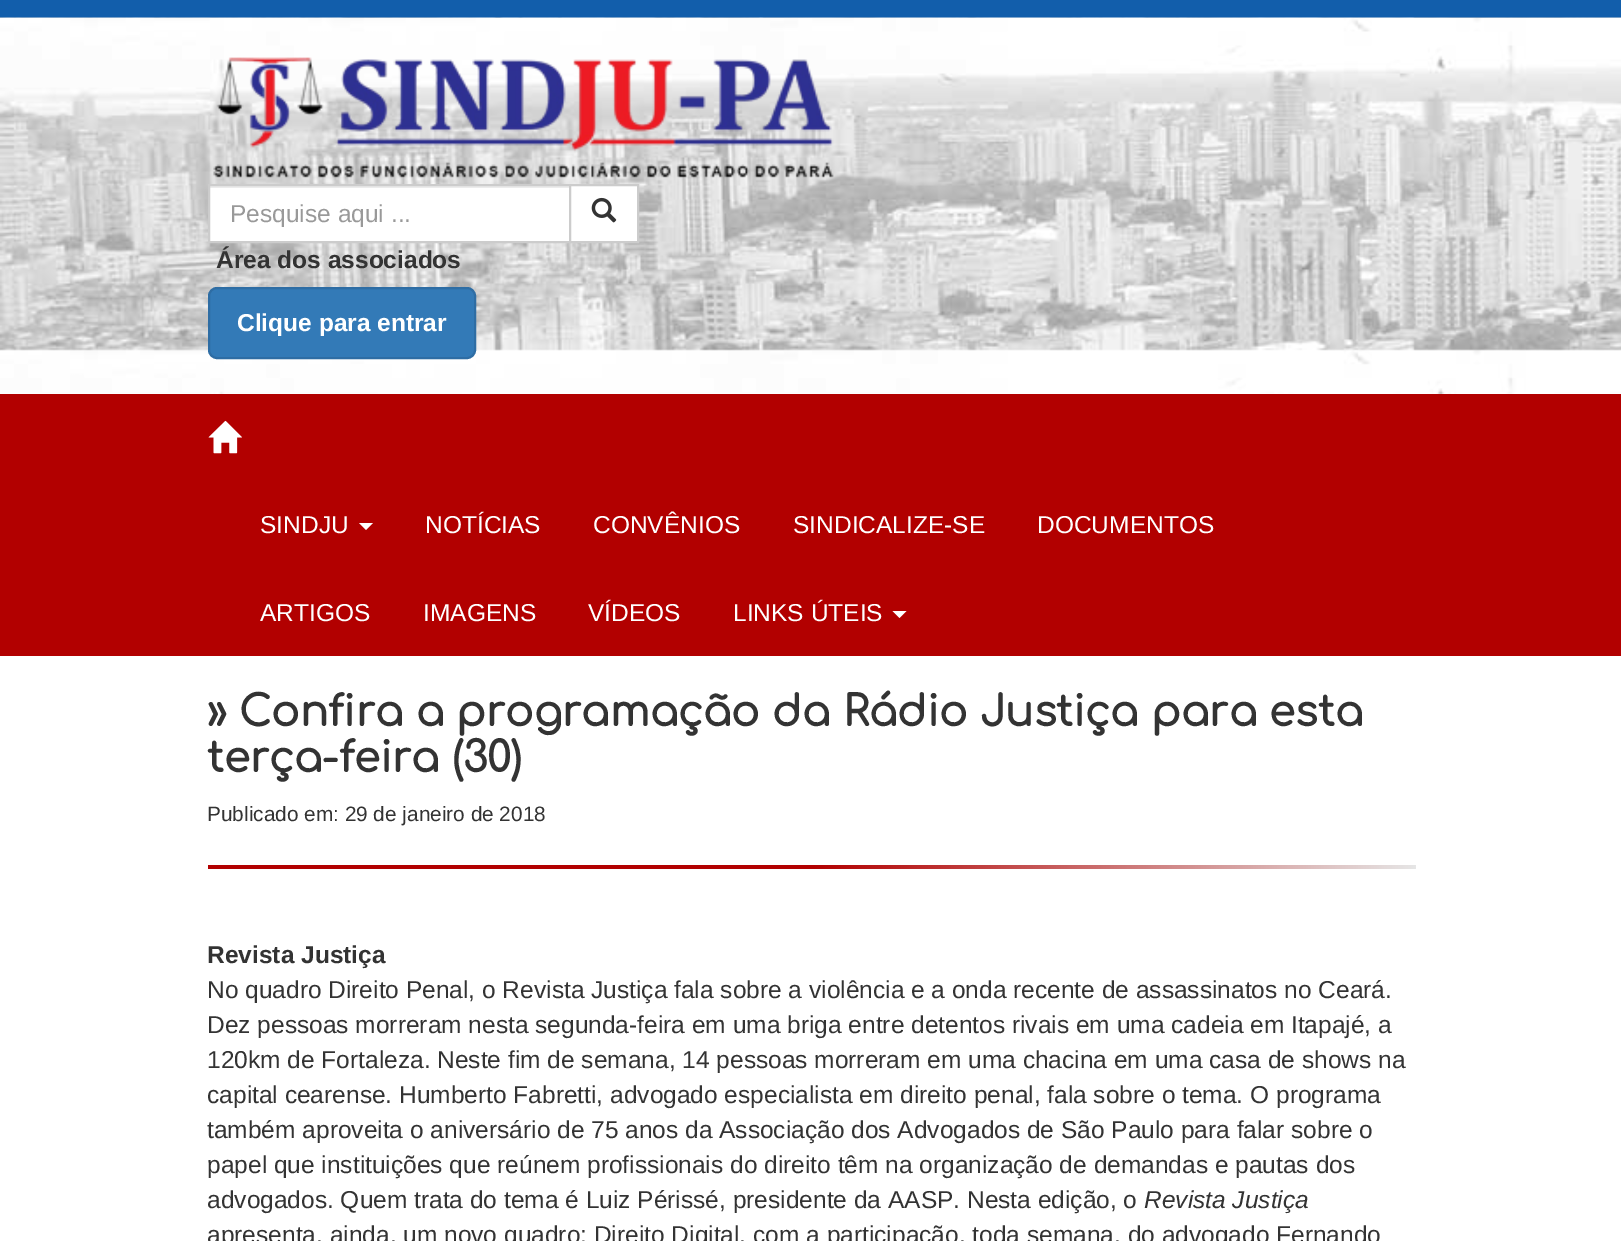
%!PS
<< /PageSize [1621 1241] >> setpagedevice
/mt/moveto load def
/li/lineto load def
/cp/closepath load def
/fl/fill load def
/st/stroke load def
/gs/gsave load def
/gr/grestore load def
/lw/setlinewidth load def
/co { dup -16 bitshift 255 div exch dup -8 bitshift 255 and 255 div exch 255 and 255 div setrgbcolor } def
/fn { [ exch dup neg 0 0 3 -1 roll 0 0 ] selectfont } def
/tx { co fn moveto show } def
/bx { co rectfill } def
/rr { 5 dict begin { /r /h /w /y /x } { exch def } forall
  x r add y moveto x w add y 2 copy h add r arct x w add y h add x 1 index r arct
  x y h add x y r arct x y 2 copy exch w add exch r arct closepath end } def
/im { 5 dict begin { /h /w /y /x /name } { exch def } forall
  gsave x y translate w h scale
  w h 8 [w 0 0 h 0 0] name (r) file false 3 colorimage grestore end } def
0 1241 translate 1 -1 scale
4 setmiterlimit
0 0 1621 1241 16#FFFFFF bx
0 0 1621 18 16#125EAB bx
(media/1.raw) 0 17 1621 377 im
(media/2.raw) 213 57 621 121 im
210 188 359 53 16#FFFFFF bx
210 186 359 2 16#ECECEC bx
16#CCCCCC co
2 lw
209 185 361 57 rectstroke
16#FFFFFF co
570 185 mt 638 185 li 638 242 li 570 242 li cp gs fl gr
16#CCCCCC co
st
(media/3.raw) 591 197 26 26 im
16#337AB7 co
209 288 266 70 8 rr gs fl gr
16#2E6DA4 co
st
0 394 1621 262 16#B20000 bx
(media/4.raw) 208 420 34 34 im
16#FFFFFF co
359 523 mt 373 523 li 366 530 li cp fl
892.5 611 mt 906.5 611 li 899.5 618 li cp fl
gs 208 865 mt 1416 865 li 1416 869 li 208 869 li cp clip newpath
<< /ShadingType 2 /ColorSpace /DeviceRGB /Coords [208 866 1416 866] /Extend [true true] /Function << /FunctionType 3 /Domain [0 1] /Functions [<< /FunctionType 2 /Domain [0 1] /C0 [.698 0 0] /C1 [.698 0 0] /N 1 >> << /FunctionType 2 /Domain [0 1] /C0 [.698 0 0] /C1 [.902 .902 .902] /N 1 >>] /Bounds [.5] /Encode [0 1 0 1] >> >> shfill gr
(Pesquise aqui ...) 230 222 /LiberationSans-Regular 24.5 16#999999 tx
(Área dos associados) 216 268 /LiberationSans-Bold 24.5 16#333333 tx
(Clique para entrar) 237 331 /LiberationSans-Bold 24.5 16#FFFFFF tx
(SINDJU) 260 533 /LiberationSans-Regular 24.5 16#FFFFFF tx
(NOTÍCIAS) 425 533 /LiberationSans-Regular 24.5 16#FFFFFF tx
(CONVÊNIOS) 593 533 /LiberationSans-Regular 24.5 16#FFFFFF tx
(SINDICALIZE-SE) 793 533 /LiberationSans-Regular 24.5 16#FFFFFF tx
(DOCUMENTOS) 1037 533 /LiberationSans-Regular 24.5 16#FFFFFF tx
(ARTIGOS) 260 621 /LiberationSans-Regular 24.5 16#FFFFFF tx
(IMAGENS) 423 621 /LiberationSans-Regular 24.5 16#FFFFFF tx
(VÍDEOS) 588 621 /LiberationSans-Regular 24.5 16#FFFFFF tx
(LINKS ÚTEIS) 733 621 /LiberationSans-Regular 24.5 16#FFFFFF tx
(» Confira a programação da Rádio Justiça para esta) 207 726 /Comfortaa-Bold 42 16#333333 tx
(terça-feira \(30\)) 207 772 /Comfortaa-Bold 42 16#333333 tx
(Publicado em: 29 de janeiro de 2018) 207 821 /LiberationSans-Regular 20.8 16#333333 tx
(Revista Justiça) 207 963 /LiberationSans-Bold 24.5 16#333333 tx
(No quadro Direito Penal, o Revista Justiça fala sobre a violência e a onda recente de assassinatos no Ceará.) 207 998 /LiberationSans-Regular 24.5 16#333333 tx
(Dez pessoas morreram nesta segunda-feira em uma briga entre detentos rivais em uma cadeia em Itapajé, a) 207 1033 /LiberationSans-Regular 24.5 16#333333 tx
(120km de Fortaleza. Neste fim de semana, 14 pessoas morreram em uma chacina em uma casa de shows na) 207 1068 /LiberationSans-Regular 24.5 16#333333 tx
(capital cearense. Humberto Fabretti, advogado especialista em direito penal, fala sobre o tema. O programa) 207 1103 /LiberationSans-Regular 24.5 16#333333 tx
(também aproveita o aniversário de 75 anos da Associação dos Advogados de São Paulo para falar sobre o) 207 1138 /LiberationSans-Regular 24.5 16#333333 tx
(papel que instituições que reúnem profissionais do direito têm na organização de demandas e pautas dos) 207 1173 /LiberationSans-Regular 24.5 16#333333 tx
(advogados. Quem trata do tema é Luiz Périssé, presidente da AASP. Nesta edição, o) 207 1208 /LiberationSans-Regular 24.5 16#333333 tx
(Revista Justiça) 1144 1208 /LiberationSans-Italic 24.5 16#333333 tx
(apresenta, ainda, um novo quadro: Direito Digital, com a participação, toda semana, do advogado Fernando) 207 1243 /LiberationSans-Regular 24.5 16#333333 tx
showpage
